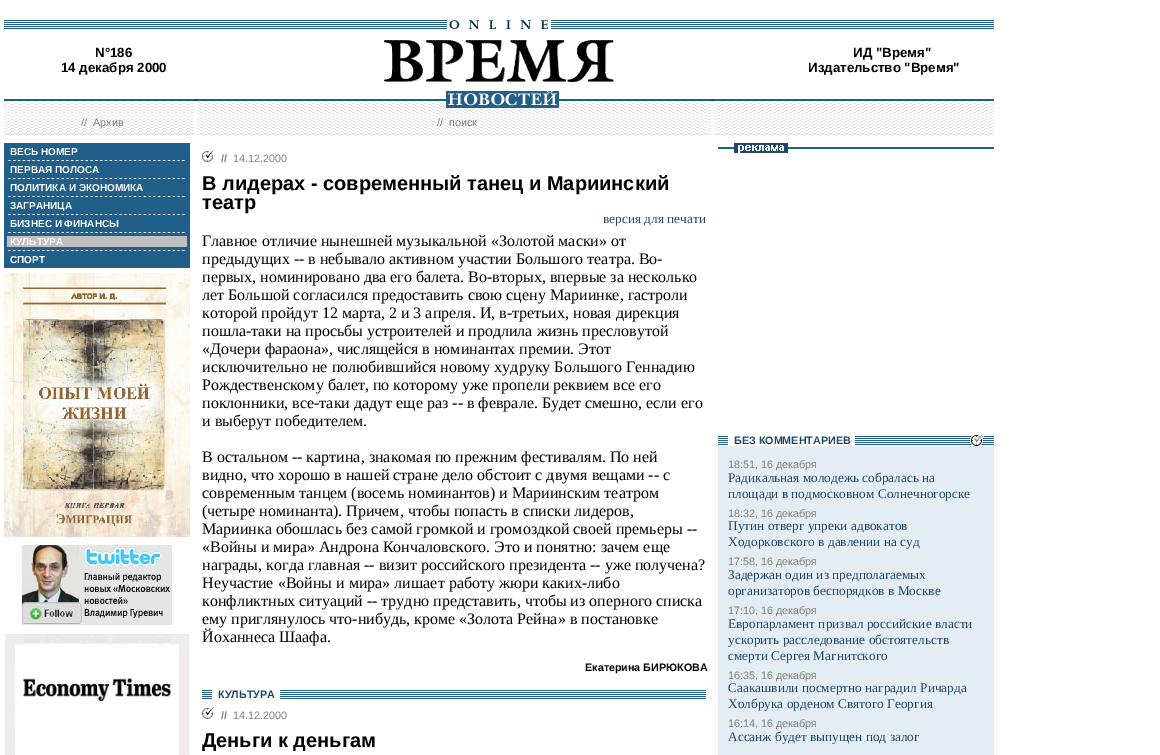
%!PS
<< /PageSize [1160 755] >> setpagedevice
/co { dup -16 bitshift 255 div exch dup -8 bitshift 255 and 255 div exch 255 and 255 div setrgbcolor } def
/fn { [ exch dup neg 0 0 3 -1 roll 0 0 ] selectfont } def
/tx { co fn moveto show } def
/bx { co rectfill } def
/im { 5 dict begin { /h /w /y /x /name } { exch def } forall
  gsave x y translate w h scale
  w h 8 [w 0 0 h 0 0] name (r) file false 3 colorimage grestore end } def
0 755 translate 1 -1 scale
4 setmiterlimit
0 0 1160 755 16#FFFFFF bx
(media/1.raw) 4 20 990 9 im
(media/2.raw) 447 20 104 9 im
(media/3.raw) 384 40 230 42 im
(media/4.raw) 4 99 190 9 im
194 99 3 2 16#214768 bx
(media/5.raw) 197 99 514 9 im
(media/6.raw) 446 91 113 17 im
711 99 3 2 16#214768 bx
(media/7.raw) 714 99 280 9 im
(media/8.raw) 4 108 190 27 im
(media/9.raw) 197 108 514 27 im
(media/10.raw) 714 108 280 27 im
4 143 186 125 16#205F8A bx
(media/11.raw) 8 160 177 1 im
(media/11.raw) 8 178 177 1 im
(media/11.raw) 8 196 177 1 im
(media/11.raw) 8 214 177 1 im
(media/11.raw) 8 232 177 1 im
7 236 180 11 16#BFBFBF bx
(media/11.raw) 8 250 177 1 im
(media/12.raw) 4 273 186 264 im
(media/13.raw) 22 545 150 80 im
(media/14.raw) 4 634 186 121 im
(media/15.raw) 202 150 12 12 im
(media/16.raw) 202 690 504 9 im
212 690 68 9 16#FFFFFF bx
(media/15.raw) 202 707 12 12 im
718 147 276 2 16#205F8A bx
(media/17.raw) 734 143 54 10 im
(media/18.raw) 718 436 276 9 im
728 436 127 9 16#FFFFFF bx
(media/19.raw) 970 434 14 12 im
718 446 276 309 16#E4EDF4 bx
(N°186) 95 57 /LiberationSans-Bold 13.3 16#000000 tx
(14 декабря 2000) 61 72 /LiberationSans-Bold 13.3 16#000000 tx
(ИД "Время") 853 57 /LiberationSans-Bold 13.3 16#000000 tx
(Издательство "Время") 808 72 /LiberationSans-Bold 13.3 16#000000 tx
(//) 81 126 /LiberationSans-Regular 10.75 16#7F7F7F tx
(Архив) 93 126 /LiberationSans-Regular 10.75 16#7F7F7F tx
(//) 437 126 /LiberationSans-Regular 10.75 16#7F7F7F tx
(поиск) 449 126 /LiberationSans-Regular 10.75 16#7F7F7F tx
(ВЕСЬ НОМЕР) 10 155 /LiberationSans-Bold 10 16#FFFFFF tx
(ПЕРВАЯ ПОЛОСА) 10 173 /LiberationSans-Bold 10 16#FFFFFF tx
(ПОЛИТИКА И ЭКОНОМИКА) 10 191 /LiberationSans-Bold 10 16#FFFFFF tx
(ЗАГРАНИЦА) 10 209 /LiberationSans-Bold 10 16#FFFFFF tx
(БИЗНЕС И ФИНАНСЫ) 10 227 /LiberationSans-Bold 10 16#FFFFFF tx
(КУЛЬТУРА) 10 245 /LiberationSans-Bold 10 16#FFFFFF tx
(СПОРТ) 10 263 /LiberationSans-Bold 10 16#FFFFFF tx
(//) 221 162 /LiberationSans-Bold 10.75 16#7F7F7F tx
(14.12.2000) 233 162 /LiberationSans-Regular 10.75 16#7F7F7F tx
(В лидерах - современный танец и Мариинский) 202 190 /LiberationSans-Bold 20 16#000000 tx
(театр) 202 209 /LiberationSans-Bold 20 16#000000 tx
(версия для печати) 603 223 /LiberationSerif-Regular 13.3 16#214768 tx
(Главное отличие нынешней музыкальной «Золотой маски» от) 202 246 /LiberationSerif-Regular 16 16#000000 tx
(предыдущих -- в небывало активном участии Большого театра. Во-) 202 264 /LiberationSerif-Regular 16 16#000000 tx
(первых, номинировано два его балета. Во-вторых, впервые за несколько) 202 282 /LiberationSerif-Regular 16 16#000000 tx
(лет Большой согласился предоставить свою сцену Мариинке, гастроли) 202 300 /LiberationSerif-Regular 16 16#000000 tx
(которой пройдут 12 марта, 2 и 3 апреля. И, в-третьих, новая дирекция) 202 318 /LiberationSerif-Regular 16 16#000000 tx
(пошла-таки на просьбы устроителей и продлила жизнь пресловутой) 202 336 /LiberationSerif-Regular 16 16#000000 tx
(«Дочери фараона», числящейся в номинантах премии. Этот) 202 354 /LiberationSerif-Regular 16 16#000000 tx
(исключительно не полюбившийся новому худруку Большого Геннадию) 202 372 /LiberationSerif-Regular 16 16#000000 tx
(Рождественскому балет, по которому уже пропели реквием все его) 202 390 /LiberationSerif-Regular 16 16#000000 tx
(поклонники, все-таки дадут еще раз -- в феврале. Будет смешно, если его) 202 408 /LiberationSerif-Regular 16 16#000000 tx
(и выберут победителем.) 202 426 /LiberationSerif-Regular 16 16#000000 tx
(В остальном -- картина, знакомая по прежним фестивалям. По ней) 202 462 /LiberationSerif-Regular 16 16#000000 tx
(видно, что хорошо в нашей стране дело обстоит с двумя вещами -- с) 202 480 /LiberationSerif-Regular 16 16#000000 tx
(современным танцем \(восемь номинантов\) и Мариинским театром) 202 498 /LiberationSerif-Regular 16 16#000000 tx
(\(четыре номинанта\). Причем, чтобы попасть в списки лидеров,) 202 516 /LiberationSerif-Regular 16 16#000000 tx
(Мариинка обошлась без самой громкой и громоздкой своей премьеры --) 202 534 /LiberationSerif-Regular 16 16#000000 tx
(«Войны и мира» Андрона Кончаловского. Это и понятно: зачем еще) 202 552 /LiberationSerif-Regular 16 16#000000 tx
(награды, когда главная -- визит российского президента -- уже получена?) 202 570 /LiberationSerif-Regular 16 16#000000 tx
(Неучастие «Войны и мира» лишает работу жюри каких-либо) 202 588 /LiberationSerif-Regular 16 16#000000 tx
(конфликтных ситуаций -- трудно представить, чтобы из оперного списка) 202 606 /LiberationSerif-Regular 16 16#000000 tx
(ему приглянулось что-нибудь, кроме «Золота Рейна» в постановке) 202 624 /LiberationSerif-Regular 16 16#000000 tx
(Йоханнеса Шаафа.) 202 642 /LiberationSerif-Regular 16 16#000000 tx
(Екатерина БИРЮКОВА) 585 671 /LiberationSans-Bold 10.75 16#000000 tx
(КУЛЬТУРА) 218 698 /LiberationSans-Bold 10.75 16#214768 tx
(//) 221 719 /LiberationSans-Bold 10.75 16#7F7F7F tx
(14.12.2000) 233 719 /LiberationSans-Regular 10.75 16#7F7F7F tx
(Деньги к деньгам) 202 747 /LiberationSans-Bold 20 16#000000 tx
(БЕЗ КОМMЕНТАРИЕВ) 734 444 /LiberationSans-Bold 10.75 16#214768 tx
(18:51, 16 декабря) 728 468 /LiberationSans-Regular 10.75 16#7F7F7F tx
(Радикальная молодежь собралась на) 728 482 /LiberationSerif-Regular 13.3 16#214768 tx
(площади в подмосковном Солнечногорске) 728 498 /LiberationSerif-Regular 13.3 16#214768 tx
(18:32, 16 декабря) 728 517 /LiberationSans-Regular 10.75 16#7F7F7F tx
(Путин отверг упреки адвокатов) 728 530 /LiberationSerif-Regular 13.3 16#214768 tx
(Ходорковского в давлении на суд) 728 546 /LiberationSerif-Regular 13.3 16#214768 tx
(17:58, 16 декабря) 728 565 /LiberationSans-Regular 10.75 16#7F7F7F tx
(Задержан один из предполагаемых) 728 579 /LiberationSerif-Regular 13.3 16#214768 tx
(организаторов беспорядков в Москве) 728 595 /LiberationSerif-Regular 13.3 16#214768 tx
(17:10, 16 декабря) 728 614 /LiberationSans-Regular 10.75 16#7F7F7F tx
(Европарламент призвал российские власти) 728 628 /LiberationSerif-Regular 13.3 16#214768 tx
(ускорить расследование обстоятельств) 728 644 /LiberationSerif-Regular 13.3 16#214768 tx
(смерти Сергея Магнитского) 728 660 /LiberationSerif-Regular 13.3 16#214768 tx
(16:35, 16 декабря) 728 679 /LiberationSans-Regular 10.75 16#7F7F7F tx
(Саакашвили посмертно наградил Ричарда) 728 692 /LiberationSerif-Regular 13.3 16#214768 tx
(Холбрука орденом Святого Георгия) 728 708 /LiberationSerif-Regular 13.3 16#214768 tx
(16:14, 16 декабря) 728 727 /LiberationSans-Regular 10.75 16#7F7F7F tx
(Ассанж будет выпущен под залог) 728 741 /LiberationSerif-Regular 13.3 16#214768 tx
showpage
